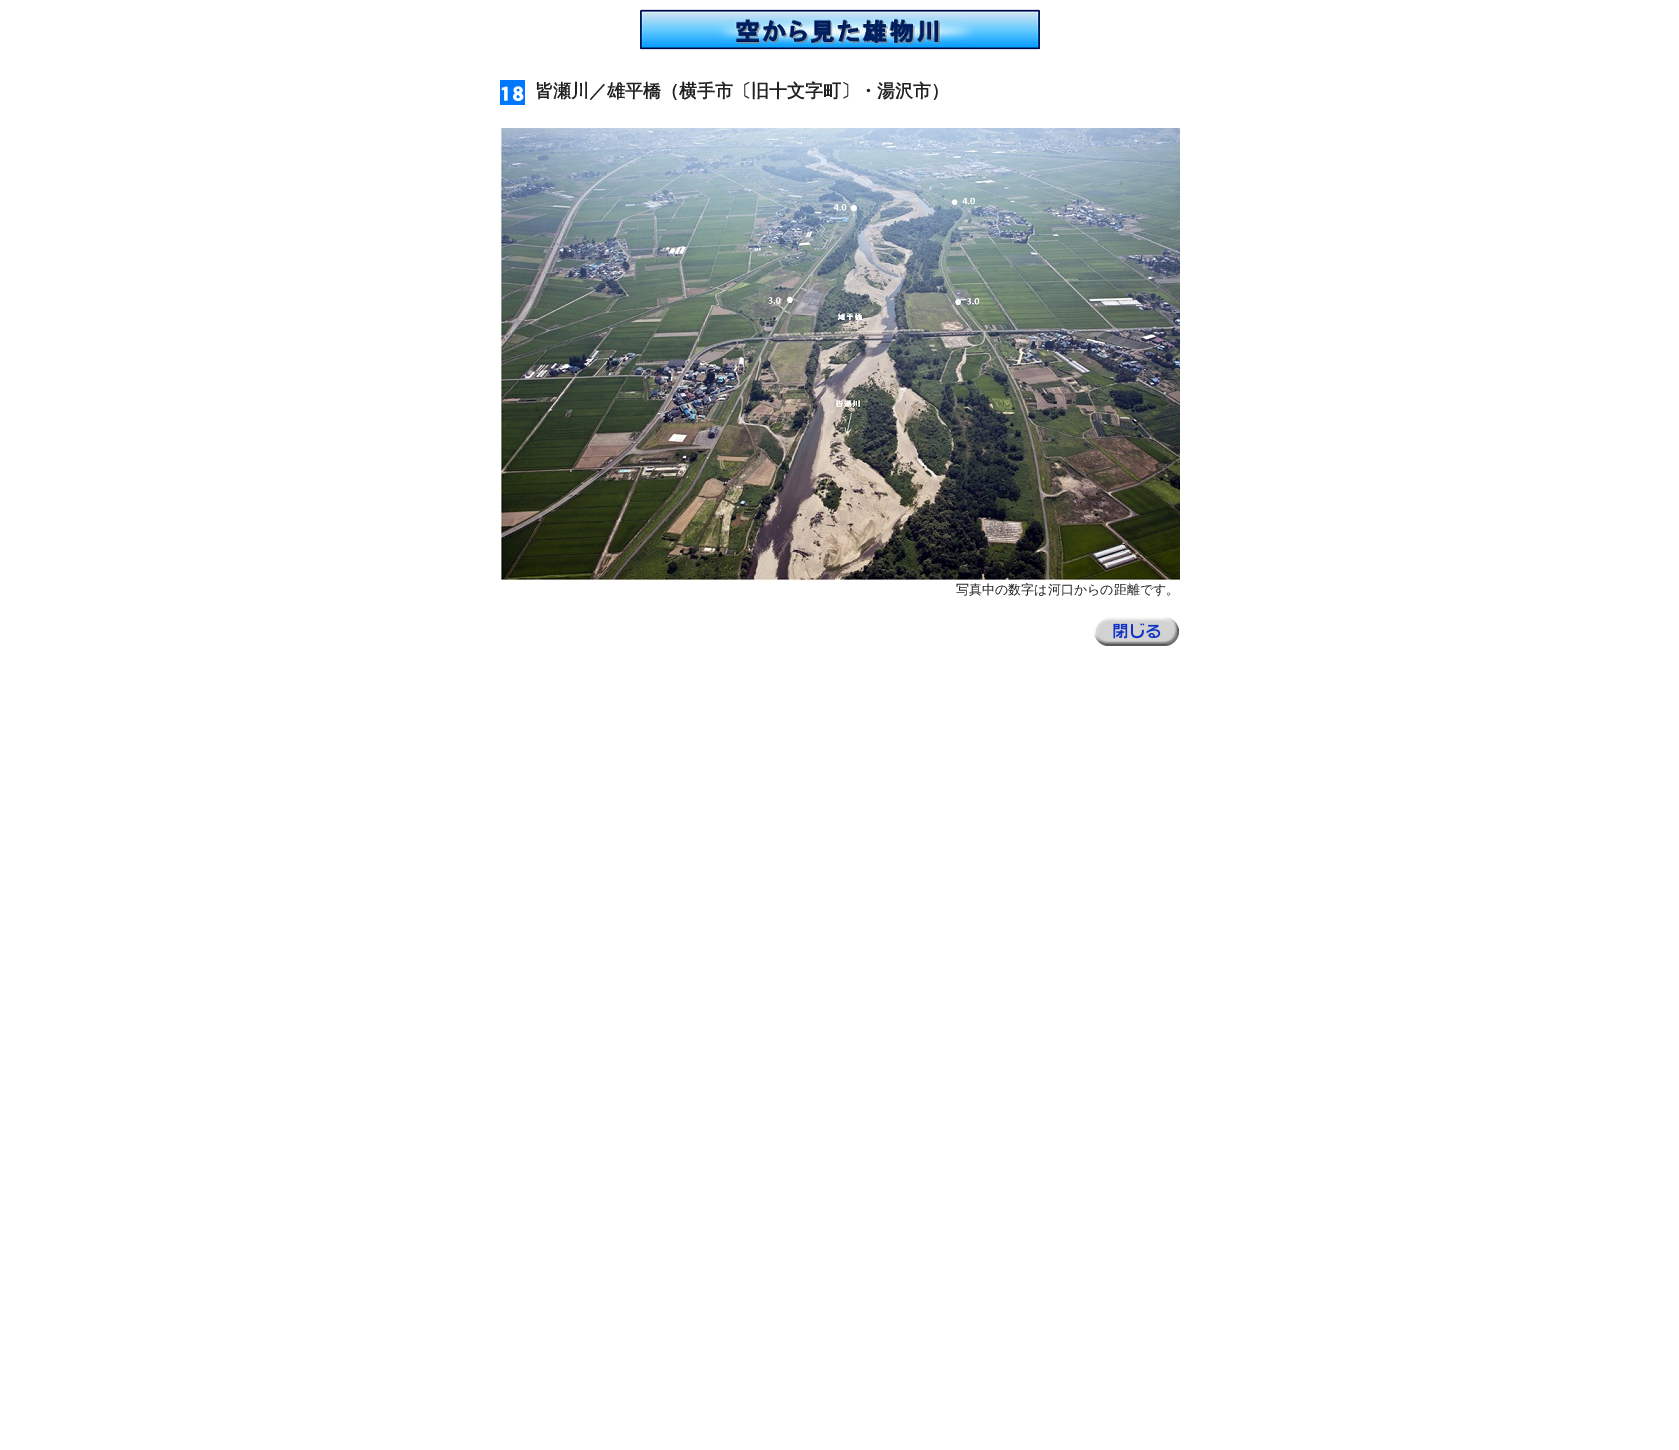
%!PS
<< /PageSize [1679 1450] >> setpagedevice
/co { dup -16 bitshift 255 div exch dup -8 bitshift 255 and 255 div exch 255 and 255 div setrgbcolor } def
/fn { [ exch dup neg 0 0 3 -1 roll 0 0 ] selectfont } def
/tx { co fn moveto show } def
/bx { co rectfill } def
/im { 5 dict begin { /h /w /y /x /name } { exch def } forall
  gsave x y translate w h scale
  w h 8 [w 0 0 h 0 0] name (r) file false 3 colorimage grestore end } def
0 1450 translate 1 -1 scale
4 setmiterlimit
0 0 1679 1450 16#FFFFFF bx
(media/1.raw) 640 9 400 41 im
(media/2.raw) 500 80 25 25 im
(media/3.raw) 500 128 680 453 im
(media/4.raw) 1094 617 85 29 im
(皆瀬川／雄平橋（横手市〔旧十文字町〕・湯沢市）) 535 97 /WenQuanYiZenHei-Bold 18 16#222222 tx
(写真中の数字は河口からの距離です。) 956 594 /WenQuanYiZenHei-Medium 13 16#222222 tx
showpage
